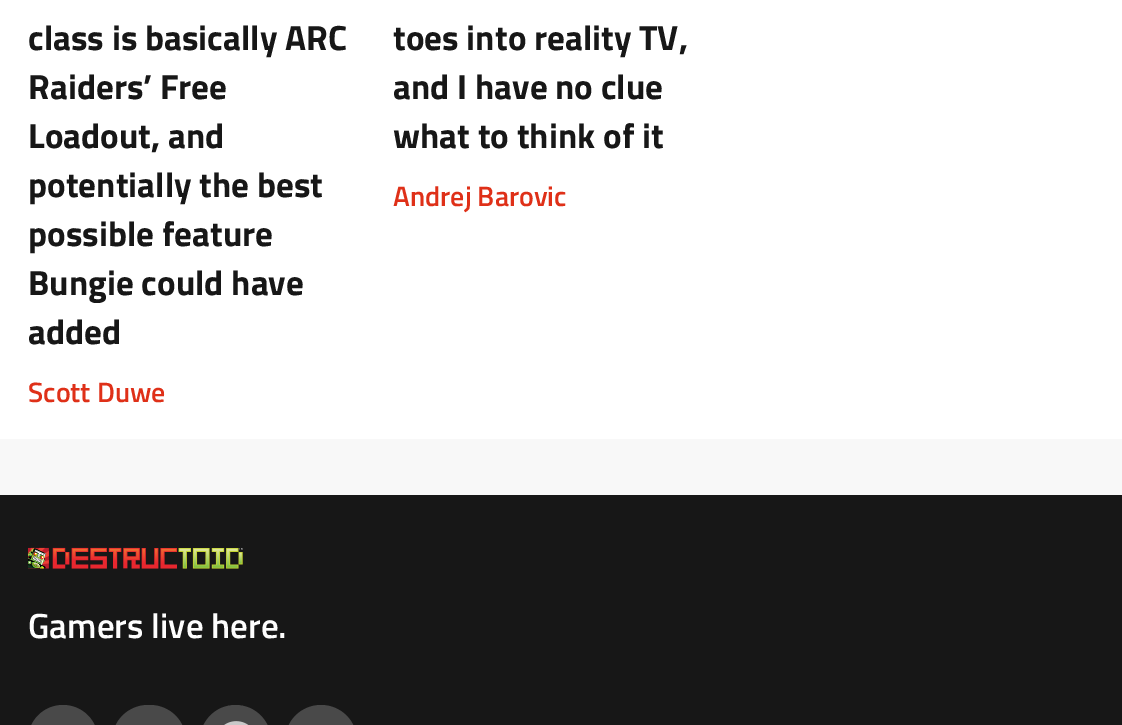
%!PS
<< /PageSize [1122 725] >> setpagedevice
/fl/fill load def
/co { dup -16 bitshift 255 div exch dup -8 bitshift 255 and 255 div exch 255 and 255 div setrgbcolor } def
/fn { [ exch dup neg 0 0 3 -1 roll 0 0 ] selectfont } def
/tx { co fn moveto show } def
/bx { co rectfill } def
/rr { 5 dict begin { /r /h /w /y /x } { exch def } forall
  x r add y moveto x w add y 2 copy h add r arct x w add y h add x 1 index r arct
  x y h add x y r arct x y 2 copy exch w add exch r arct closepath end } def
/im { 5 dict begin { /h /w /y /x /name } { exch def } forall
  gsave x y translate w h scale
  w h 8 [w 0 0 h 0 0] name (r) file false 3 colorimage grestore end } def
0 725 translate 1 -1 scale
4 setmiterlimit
0 0 1122 725 16#FFFFFF bx
0 439 1122 56 16#F8F8F8 bx
0 495 1122 230 16#171717 bx
(media/1.raw) 28 547 215 22 im
16#494949 co
28 705 70 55 35 rr fl
112 705 74 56 36 rr fl
200 705 71 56 35.5 rr fl
(media/2.raw) 224 721 25 4 im
285 705 72 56 36 rr fl
(class is basically ARC) 28 50 /TitilliumWeb-Bold 35 16#171717 tx
(Raiders’ Free) 28 99 /TitilliumWeb-Bold 35 16#171717 tx
(Loadout, and) 28 148 /TitilliumWeb-Bold 35 16#171717 tx
(potentially the best) 28 197 /TitilliumWeb-Bold 35 16#171717 tx
(possible feature) 28 246 /TitilliumWeb-Bold 35 16#171717 tx
(Bungie could have) 28 295 /TitilliumWeb-Bold 35 16#171717 tx
(added) 28 344 /TitilliumWeb-Bold 35 16#171717 tx
(Scott Duwe) 28 402 /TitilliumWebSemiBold-SemiBold 28 16#DF3018 tx
(toes into reality TV,) 393 50 /TitilliumWeb-Bold 35 16#171717 tx
(and I have no clue) 393 99 /TitilliumWeb-Bold 35 16#171717 tx
(what to think of it) 393 148 /TitilliumWeb-Bold 35 16#171717 tx
(Andrej Barovic) 393 206 /TitilliumWebSemiBold-SemiBold 28 16#DF3018 tx
(Gamers live here.) 28 638 /TitilliumWebSemiBold-SemiBold 35 16#FEFEFE tx
showpage
